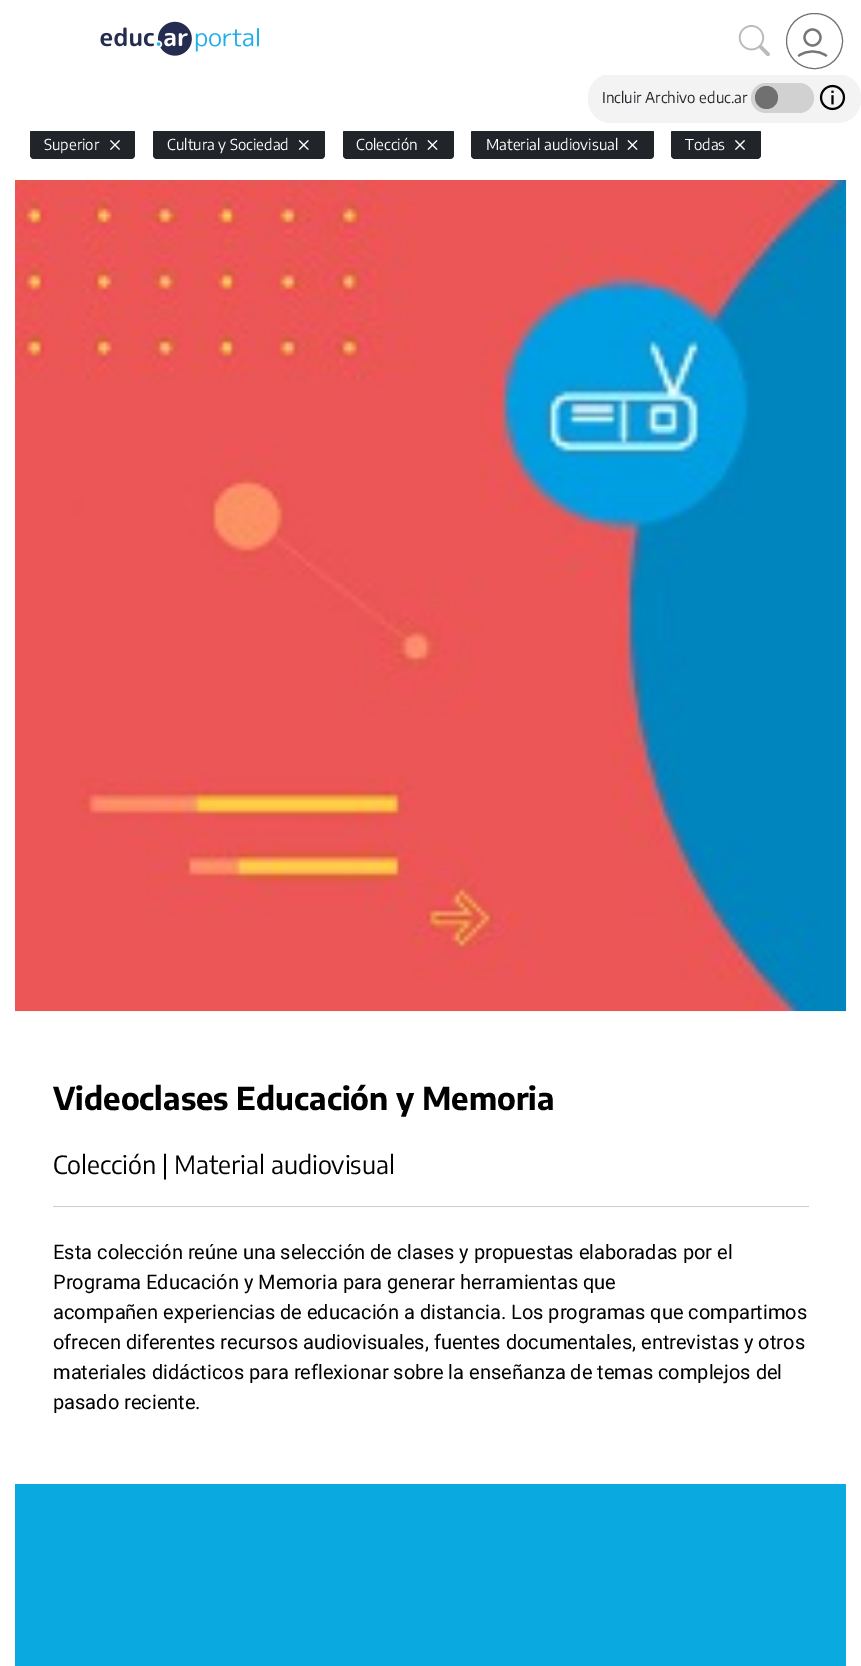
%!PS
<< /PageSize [861 1666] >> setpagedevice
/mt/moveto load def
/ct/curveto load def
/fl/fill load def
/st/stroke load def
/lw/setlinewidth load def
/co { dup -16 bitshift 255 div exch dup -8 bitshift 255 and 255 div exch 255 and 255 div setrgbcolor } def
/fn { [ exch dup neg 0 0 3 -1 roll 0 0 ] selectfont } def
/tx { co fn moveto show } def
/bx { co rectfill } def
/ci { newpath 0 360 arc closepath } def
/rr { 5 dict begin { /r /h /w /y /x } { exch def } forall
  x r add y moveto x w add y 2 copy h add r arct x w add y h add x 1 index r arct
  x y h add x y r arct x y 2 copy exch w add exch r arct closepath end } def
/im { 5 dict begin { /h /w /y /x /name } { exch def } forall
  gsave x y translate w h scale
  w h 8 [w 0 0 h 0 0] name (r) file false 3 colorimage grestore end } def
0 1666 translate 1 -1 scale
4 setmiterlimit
0 0 861 1666 16#FFFFFF bx
16#F3F3F3 co
588 74 273 49 23 rr fl
605 74 239 1 16#FFFFFF bx
(media/1.raw) 100 21 159 35 im
(media/2.raw) 738 25 32 32 im
16#707070 co
786.5 13.5 56 55 27.5 rr st
16#767676 co
2.2 lw
812.5 37.5 8 ci st
1 setlinecap
1 setlinejoin
799 55.5 mt 807.5 50 817.5 50 826 55.5 ct st
16#212529 co
30 129 105 30 4 rr fl
153 129 172 30 4 rr fl
343 129 111 30 4 rr fl
471 129 183 30 4 rr fl
671 129 90 30 4 rr fl
30 129 731 2 16#FFFFFF bx
16#D1D1D1 co
751 83 63 30 15 rr fl
16#707070 co
766.5 97.5 11.5 ci fl
(media/3.raw) 819 84 27 27 im
(media/4.raw) 110 140 10 10 im
(media/5.raw) 298 140 11 10 im
(media/6.raw) 427 140 11 10 im
(media/6.raw) 627 140 11 10 im
(media/4.raw) 735 140 10 10 im
(media/7.raw) 15 180 832 832 im
53 1206 756 1 16#CCCCCC bx
15 1484 831 182 16#0AAAE1 bx
(Incluir Archivo educ.ar) 602 103 /EncodeSansCondensed-Regular 15 16#212529 tx
(Superior) 44 150 /EncodeSansCondensed-Regular 15 16#FFFFFF tx
(Cultura y Sociedad) 167 150 /EncodeSansCondensed-Regular 15 16#FFFFFF tx
(Colección) 356 150 /EncodeSansCondensed-Regular 15 16#FFFFFF tx
(Material audiovisual) 486 150 /EncodeSansCondensed-Regular 15 16#FFFFFF tx
(Todas) 685 150 /EncodeSansCondensed-Regular 15 16#FFFFFF tx
(Videoclases Educación y Memoria) 53 1110 /EncodeSansCondensed-Bold 31.25 16#000000 tx
(Colección | Material audiovisual) 53 1174 /EncodeSansCondensed-Regular 25 16#000000 tx
(Esta colección reúne una selección de clases y propuestas elaboradas por el) 53 1259 /Roboto-Regular 20 16#000000 tx
(Programa Educación y Memoria para generar herramientas que) 53 1289 /Roboto-Regular 20 16#000000 tx
(acompañen experiencias de educación a distancia. Los programas que compartimos) 53 1319 /Roboto-Regular 20 16#000000 tx
(ofrecen diferentes recursos audiovisuales, fuentes documentales, entrevistas y otros) 53 1349 /Roboto-Regular 20 16#000000 tx
(materiales didácticos para reflexionar sobre la enseñanza de temas complejos del) 53 1379 /Roboto-Regular 20 16#000000 tx
(pasado reciente.) 53 1409 /Roboto-Regular 20 16#000000 tx
showpage
